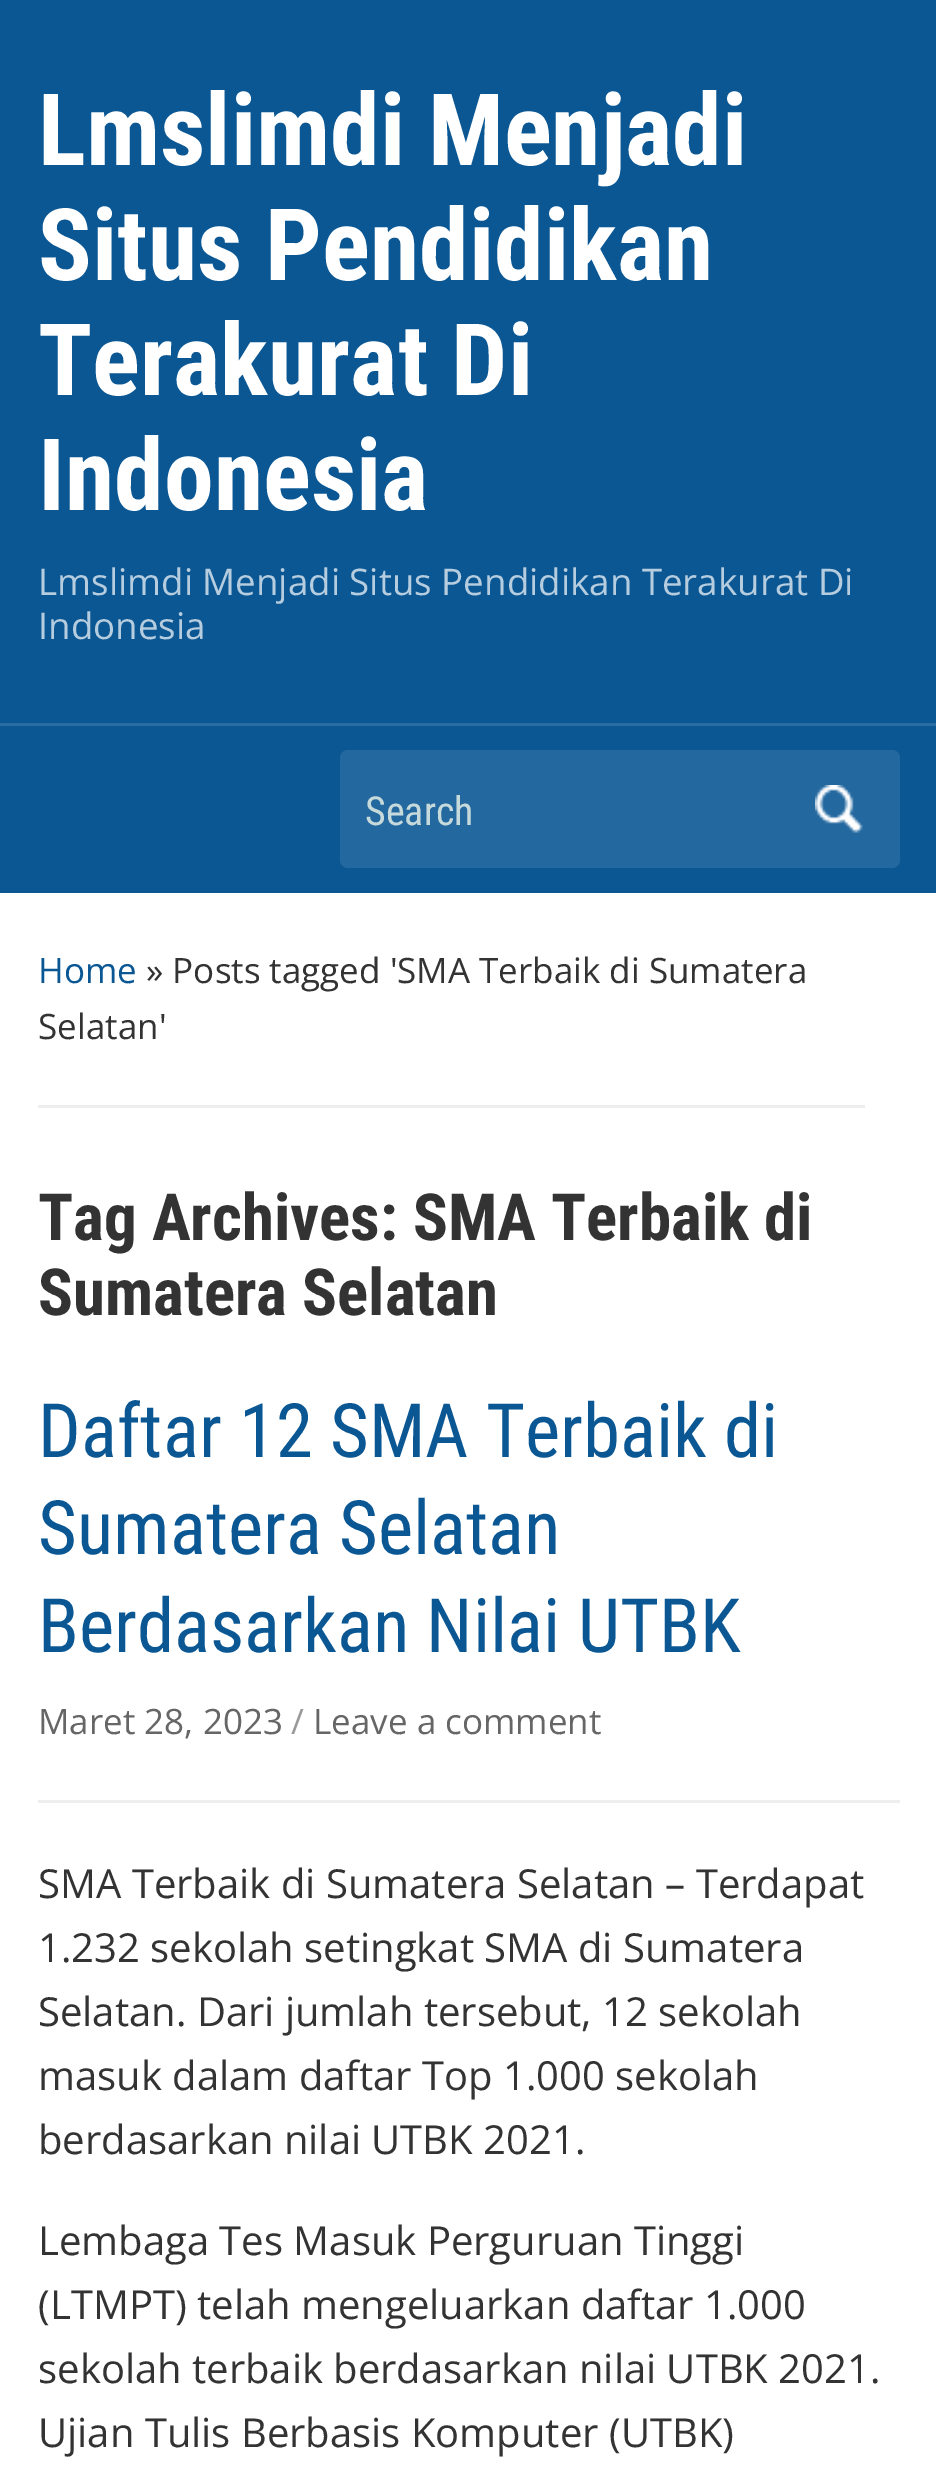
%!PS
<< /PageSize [936 2465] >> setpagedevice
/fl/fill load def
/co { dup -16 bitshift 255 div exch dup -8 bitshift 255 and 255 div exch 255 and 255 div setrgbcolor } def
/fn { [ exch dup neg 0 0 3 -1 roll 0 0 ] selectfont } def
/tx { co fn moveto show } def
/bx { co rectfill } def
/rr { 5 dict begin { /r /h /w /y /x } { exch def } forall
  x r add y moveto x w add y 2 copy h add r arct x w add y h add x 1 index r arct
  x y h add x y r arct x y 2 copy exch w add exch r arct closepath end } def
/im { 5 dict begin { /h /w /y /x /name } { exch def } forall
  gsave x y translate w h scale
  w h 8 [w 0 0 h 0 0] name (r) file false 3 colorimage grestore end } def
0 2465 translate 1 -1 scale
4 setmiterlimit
0 0 936 2465 16#FFFFFF bx
0 0 936 893 16#0A5794 bx
0 723 936 3 16#2A6DA2 bx
16#23689F co
340 750 560 118 8 rr fl
(media/1.raw) 815 785 48 48 im
38 1105 827 3 16#EEEEEE bx
38 1800 862 3 16#EEEEEE bx
(Lmslimdi Menjadi) 38 165 /RobotoCondensed-Bold 100 16#FFFFFF tx
(Situs Pendidikan) 38 280 /RobotoCondensed-Bold 100 16#FFFFFF tx
(Terakurat Di) 38 395 /RobotoCondensed-Bold 100 16#FFFFFF tx
(Indonesia) 38 510 /RobotoCondensed-Bold 100 16#FFFFFF tx
(Lmslimdi Menjadi Situs Pendidikan Terakurat Di) 38 595 /OpenSans-Regular 36.7 16#B6CDDF tx
(Indonesia) 38 639 /OpenSans-Regular 36.7 16#B6CDDF tx
(Search) 365 825 /RobotoCondensed-Regular 40 16#C6D9DB tx
(Home) 38 983 /OpenSans-Regular 35 16#0A5794 tx
(» Posts tagged 'SMA Terbaik di Sumatera) 146 983 /OpenSans-Regular 35 16#333333 tx
(Selatan') 38 1039 /OpenSans-Regular 35 16#333333 tx
(Tag Archives: SMA Terbaik di) 38 1240 /RobotoCondensed-Bold 65 16#333333 tx
(Sumatera Selatan) 38 1315 /RobotoCondensed-Bold 65 16#333333 tx
(Daftar 12 SMA Terbaik di) 38 1457 /RobotoCondensed-Regular 75 16#0A5794 tx
(Sumatera Selatan) 38 1554 /RobotoCondensed-Regular 75 16#0A5794 tx
(Berdasarkan Nilai UTBK) 38 1652 /RobotoCondensed-Regular 75 16#0A5794 tx
(Maret 28, 2023) 38 1734 /OpenSans-Regular 35 16#666666 tx
(/) 291 1734 /OpenSans-Regular 35 16#999999 tx
(Leave a comment) 313 1734 /OpenSans-Regular 35 16#666666 tx
(SMA Terbaik di Sumatera Selatan – Terdapat) 38 1898 /OpenSans-Regular 40 16#333333 tx
(1.232 sekolah setingkat SMA di Sumatera) 38 1962 /OpenSans-Regular 40 16#333333 tx
(Selatan. Dari jumlah tersebut, 12 sekolah) 38 2026 /OpenSans-Regular 40 16#333333 tx
(masuk dalam daftar Top 1.000 sekolah) 38 2090 /OpenSans-Regular 40 16#333333 tx
(berdasarkan nilai UTBK 2021.) 38 2154 /OpenSans-Regular 40 16#333333 tx
(Lembaga Tes Masuk Perguruan Tinggi) 38 2255 /OpenSans-Regular 40 16#333333 tx
(\(LTMPT\) telah mengeluarkan daftar 1.000) 38 2319 /OpenSans-Regular 40 16#333333 tx
(sekolah terbaik berdasarkan nilai UTBK 2021.) 38 2383 /OpenSans-Regular 40 16#333333 tx
(Ujian Tulis Berbasis Komputer \(UTBK\)) 38 2447 /OpenSans-Regular 40 16#333333 tx
showpage
